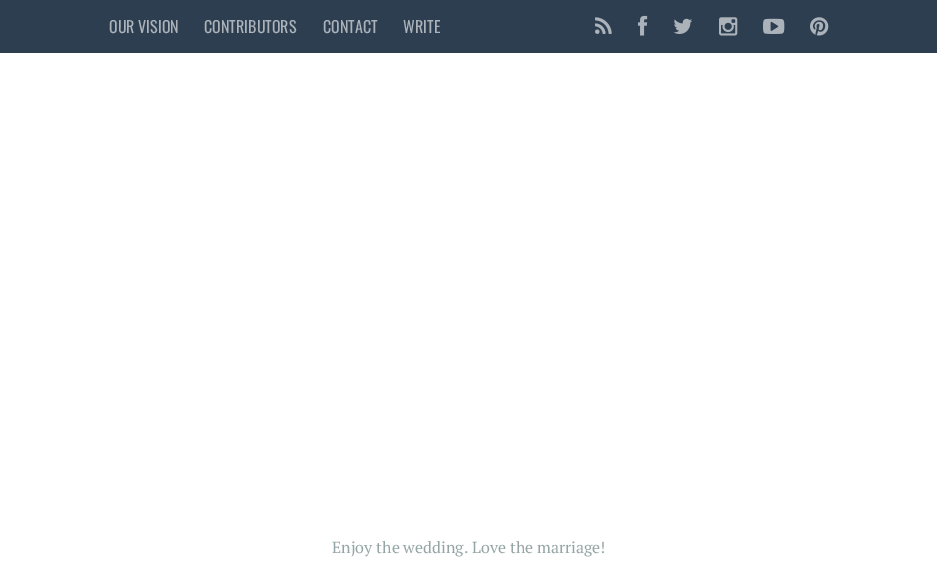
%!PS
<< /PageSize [937 579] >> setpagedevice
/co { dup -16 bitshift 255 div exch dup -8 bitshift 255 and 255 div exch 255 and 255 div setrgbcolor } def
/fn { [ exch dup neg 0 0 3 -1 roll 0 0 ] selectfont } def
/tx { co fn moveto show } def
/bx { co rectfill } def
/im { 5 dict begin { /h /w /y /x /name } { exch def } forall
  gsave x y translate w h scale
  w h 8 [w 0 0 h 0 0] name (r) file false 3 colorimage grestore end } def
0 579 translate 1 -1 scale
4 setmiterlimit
0 0 937 579 16#FFFFFF bx
0 0 937 53 16#2C3E50 bx
(media/1.raw) 595 17 17 17 im
(media/2.raw) 638 15 10 21 im
(media/3.raw) 673 18 19 16 im
(media/4.raw) 719 17 19 19 im
(media/5.raw) 763 18 22 16 im
(media/6.raw) 810 17 19 19 im
(OUR VISION) 109 33 /Oswald-Regular 16 16#ABB2B9 tx
(CONTRIBUTORS) 204 33 /Oswald-Regular 16 16#ABB2B9 tx
(CONTACT) 323 33 /Oswald-Regular 16 16#ABB2B9 tx
(WRITE) 403 33 /Oswald-Regular 16 16#ABB2B9 tx
(Enjoy the wedding. Love the marriage!) 332 553 /PTSerif-Regular 16 16#95A5A6 tx
showpage
